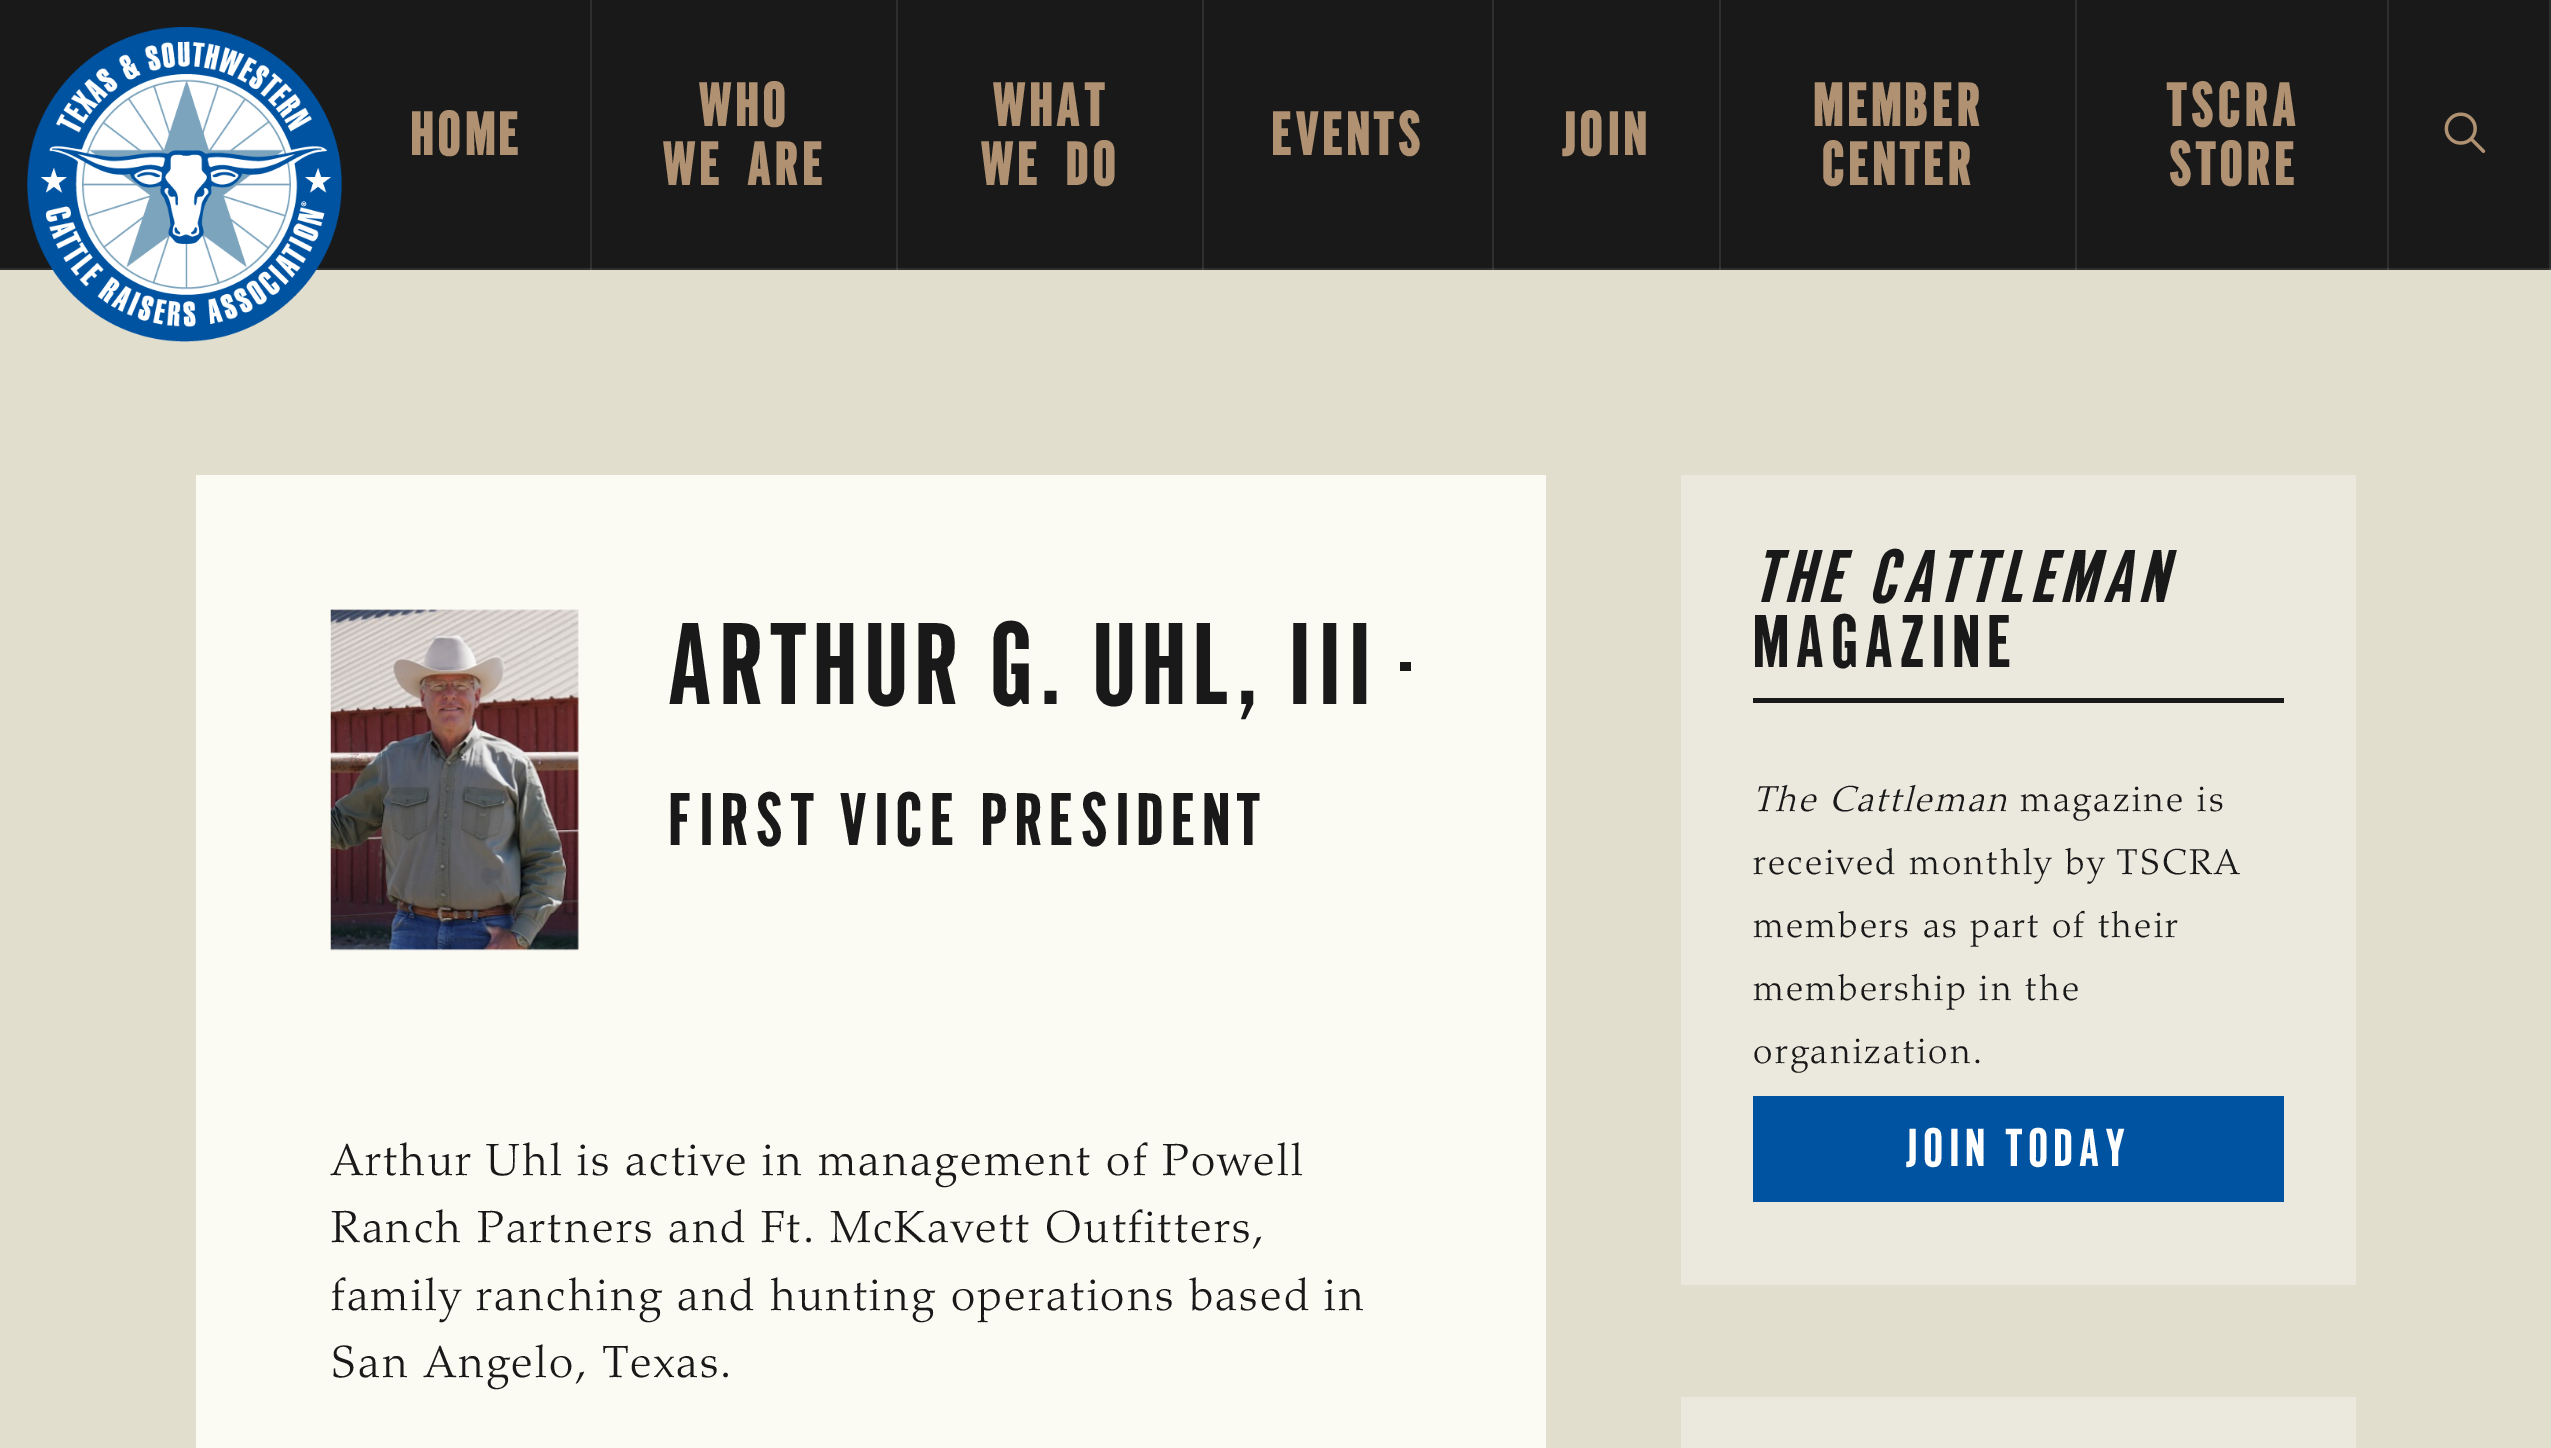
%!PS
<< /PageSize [2551 1448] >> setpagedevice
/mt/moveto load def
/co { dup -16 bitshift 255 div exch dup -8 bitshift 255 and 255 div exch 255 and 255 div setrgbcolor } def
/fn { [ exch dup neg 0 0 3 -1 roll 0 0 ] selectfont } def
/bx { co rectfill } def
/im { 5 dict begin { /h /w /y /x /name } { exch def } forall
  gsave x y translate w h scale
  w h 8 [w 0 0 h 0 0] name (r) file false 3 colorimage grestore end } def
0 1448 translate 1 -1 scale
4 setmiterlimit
0 0 2551 1448 16#E2DECE bx
0 0 2549 268 16#191919 bx
2549 0 2 270 16#2E2E2E bx
2387 0 2 270 16#2E2E2E bx
2075 0 2 270 16#2E2E2E bx
1719 0 2 270 16#2E2E2E bx
1492 0 2 270 16#2E2E2E bx
1202 0 2 270 16#2E2E2E bx
896 0 2 270 16#2E2E2E bx
590 0 2 270 16#2E2E2E bx
0 268 2551 2 16#2E2E2E bx
2549 268 2 2 16#414141 bx
2387 268 2 2 16#414141 bx
2075 268 2 2 16#414141 bx
1719 268 2 2 16#414141 bx
1492 268 2 2 16#414141 bx
1202 268 2 2 16#414141 bx
896 268 2 2 16#414141 bx
590 268 2 2 16#414141 bx
(media/1.raw) 27 27 315 315 im
(media/2.raw) 2444 112 42 41 im
196 475 1350 973 16#FBFAF3 bx
(media/3.raw) 330 609 249 342 im
1400 662 11 9 16#191919 bx
1681 475 675 810 16#EBE9DE bx
1753 698 531 5 16#191919 bx
1753 1096 531 106 16#0053A0 bx
1681 1397 675 51 16#EBE9DE bx
/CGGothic-Bold 58.5 fn
16#B09273 co
410 155 mt 4.5 0 (HOME) ashow
698 126 mt 4.5 0 (WHO) ashow
662 185 mt 4.5 0 (WE) ashow
747 185 mt 4.5 0 (ARE) ashow
992 126 mt 4.5 0 (WHAT) ashow
980 185 mt 4.5 0 (WE) ashow
1065 185 mt 4.5 0 (DO) ashow
1271 155 mt 4.5 0 (EVENTS) ashow
1562 155 mt 4.5 0 (JOIN) ashow
1813 126 mt 4.5 0 (MEMBER) ashow
1821 185 mt 4.5 0 (CENTER) ashow
2166 126 mt 4.5 0 (TSCRA) ashow
2168 185 mt 4.5 0 (STORE) ashow
/CGGothic-Regular 112.5 fn
16#191919 co
668 704 mt 6.75 0 (ARTHUR G. UHL, III) ashow
/CGGothic-Regular 72 fn
668 845 mt 6.75 0 (FIRST VICE PRESIDENT) ashow
/Palatino-Light 45 fn
331 1175 mt 2.25 0 (Arthur Uhl is active in management of Powell) ashow
331 1242 mt 2.25 0 (Ranch Partners and Ft. McKavett Outfitters,) ashow
331 1310 mt 2.25 0 (family ranching and hunting operations based in) ashow
331 1377 mt 2.25 0 (San Angelo, Texas.) ashow
/CGGothic-Italic 72 fn
1753 602 mt 6.75 0 (THE CATTLEMAN) ashow
/CGGothic-Regular 72 fn
1753 667 mt 6.75 0 (MAGAZINE) ashow
/Palatino-LightItalic 36 fn
1753 811 mt 2.25 0 (The Cattleman) ashow
/Palatino-Light 36 fn
2020 811 mt 2.25 0 (magazine is) ashow
1753 874 mt 2.25 0 (received monthly by TSCRA) ashow
1753 937 mt 2.25 0 (members as part of their) ashow
1753 1000 mt 2.25 0 (membership in the) ashow
1753 1063 mt 2.25 0 (organization.) ashow
/CGGothic-Regular 51.75 fn
16#FFFFFF co
1906 1166 mt 5.6 0 (JOIN TODAY) ashow
showpage
